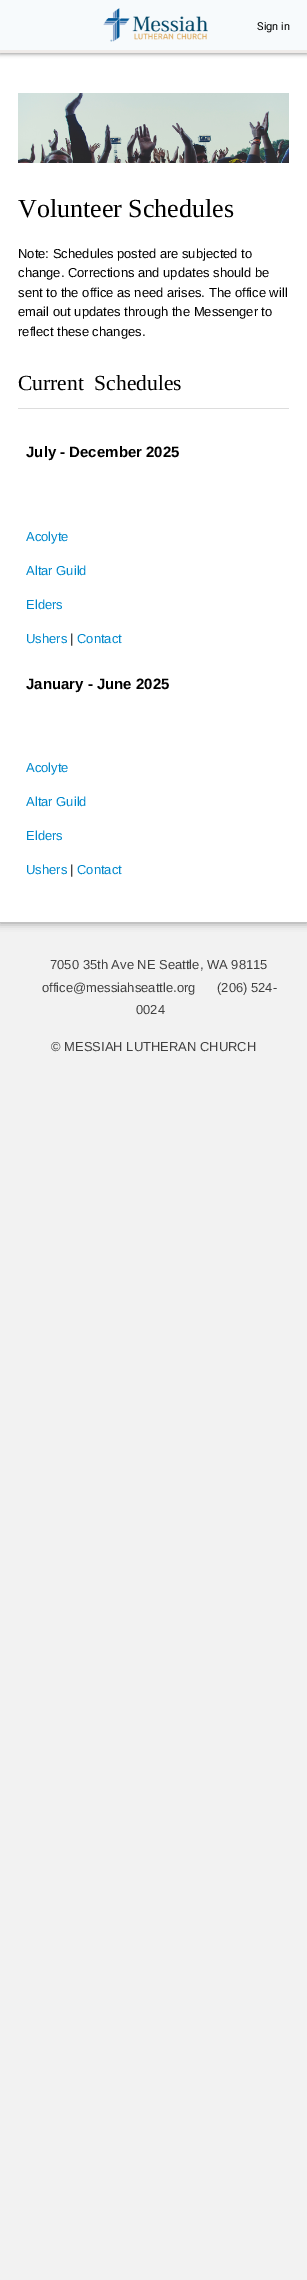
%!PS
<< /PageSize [307 2280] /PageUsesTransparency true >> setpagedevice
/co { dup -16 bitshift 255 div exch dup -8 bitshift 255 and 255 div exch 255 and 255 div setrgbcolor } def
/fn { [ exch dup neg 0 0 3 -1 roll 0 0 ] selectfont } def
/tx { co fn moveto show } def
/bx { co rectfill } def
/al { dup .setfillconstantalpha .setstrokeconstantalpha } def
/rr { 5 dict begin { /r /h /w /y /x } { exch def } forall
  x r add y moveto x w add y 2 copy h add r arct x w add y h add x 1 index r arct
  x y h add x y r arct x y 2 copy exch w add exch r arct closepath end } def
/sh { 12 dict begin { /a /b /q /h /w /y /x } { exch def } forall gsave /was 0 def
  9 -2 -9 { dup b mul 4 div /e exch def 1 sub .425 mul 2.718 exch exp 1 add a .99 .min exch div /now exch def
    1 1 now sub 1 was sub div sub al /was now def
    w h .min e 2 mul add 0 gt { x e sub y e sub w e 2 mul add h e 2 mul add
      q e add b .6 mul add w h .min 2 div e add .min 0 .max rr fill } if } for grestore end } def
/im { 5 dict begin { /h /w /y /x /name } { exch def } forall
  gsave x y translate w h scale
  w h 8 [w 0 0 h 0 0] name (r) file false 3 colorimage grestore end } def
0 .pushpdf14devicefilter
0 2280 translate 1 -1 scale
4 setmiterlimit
0 0 307 2280 16#F2F2F2 bx
16#000000 co
0 54 307 869 0 4 .4 sh
0 53 307 869 16#FFFFFF bx
16#000000 co
0 1 307 53 0 2 .4 sh
0 0 307 50 16#F7FAFC bx
0 50 307 3 16#EFEBE9 bx
(media/1.raw) 103 8 105 34 im
(media/2.raw) 18 93 271 70 im
18 408 271 1 16#DDDDDD bx
(Sign in) 257 30 /Roboto-Regular 11 16#000000 tx
(Volunteer Schedules) 18 217 /LiberationSerif-Regular 26 16#000000 tx
(Note: Schedules posted are subjected to) 18 258 /LiberationSans-Regular 13 16#000000 tx
(change. Corrections and updates should be) 18 277 /LiberationSans-Regular 13 16#000000 tx
(sent to the office as need arises. The office will) 18 297 /LiberationSans-Regular 13 16#000000 tx
(email out updates through the Messenger to) 18 316 /LiberationSans-Regular 13 16#000000 tx
(reflect these changes.) 18 336 /LiberationSans-Regular 13 16#000000 tx
(Current  Schedules) 18 390 /LiberationSerif-Regular 21.5 16#000000 tx
(July - December 2025) 26 457 /LiberationSans-Bold 15 16#000000 tx
(Acolyte) 26 541 /LiberationSans-Regular 13 16#0088CC tx
(Altar Guild) 26 575 /LiberationSans-Regular 13 16#0088CC tx
(Elders) 26 609 /LiberationSans-Regular 13 16#0088CC tx
(Ushers) 26 643 /LiberationSans-Regular 13 16#0088CC tx
(|) 70 643 /LiberationSans-Regular 13 16#000000 tx
(Contact) 77 643 /LiberationSans-Regular 13 16#0088CC tx
(January - June 2025) 26 689 /LiberationSans-Bold 15 16#000000 tx
(Acolyte) 26 772 /LiberationSans-Regular 13 16#0088CC tx
(Altar Guild) 26 806 /LiberationSans-Regular 13 16#0088CC tx
(Elders) 26 840 /LiberationSans-Regular 13 16#0088CC tx
(Ushers) 26 874 /LiberationSans-Regular 13 16#0088CC tx
(|) 70 874 /LiberationSans-Regular 13 16#000000 tx
(Contact) 77 874 /LiberationSans-Regular 13 16#0088CC tx
(7050 35th Ave NE Seattle, WA 98115) 50 969 /LiberationSans-Regular 13 16#404040 tx
(office@messiahseattle.org) 42 992 /LiberationSans-Regular 13 16#404040 tx
(\(206\) 524-) 217 992 /LiberationSans-Regular 13 16#404040 tx
(0024) 136 1014 /LiberationSans-Regular 13 16#404040 tx
(© MESSIAH LUTHERAN CHURCH) 51 1051 /LiberationSans-Regular 13 16#404040 tx
.poppdf14devicefilter showpage
